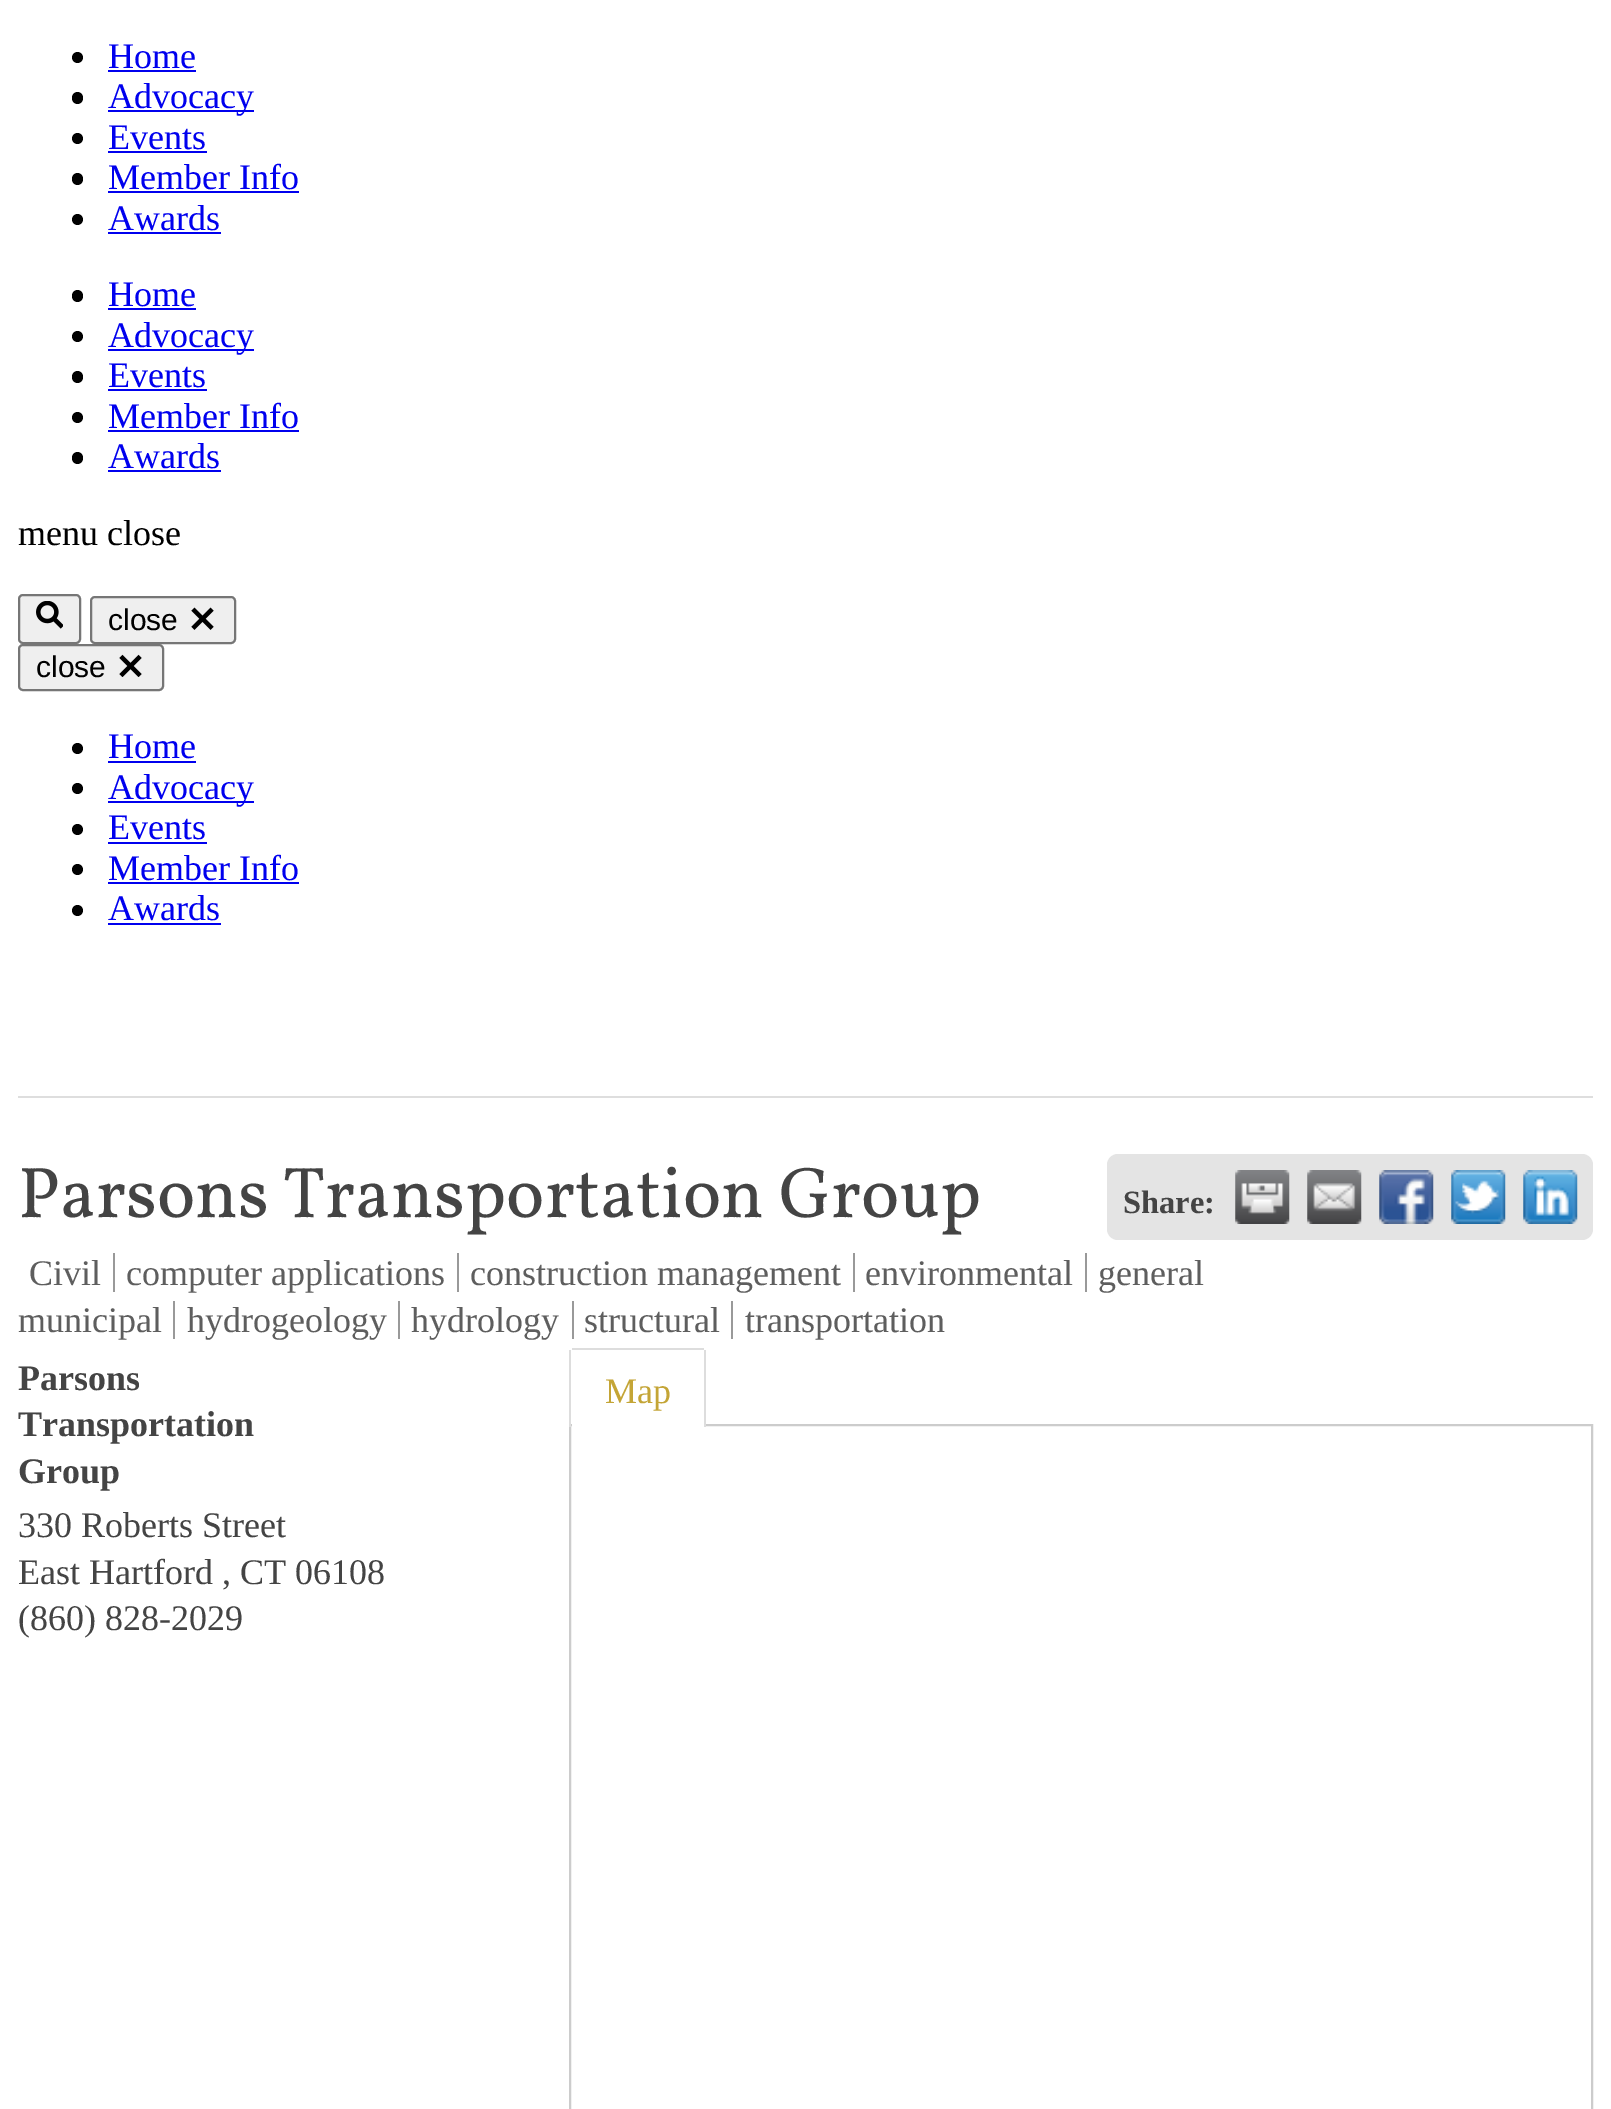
%!PS
<< /PageSize [1611 2109] >> setpagedevice
/mt/moveto load def
/li/lineto load def
/ct/curveto load def
/cp/closepath load def
/fl/fill load def
/st/stroke load def
/gs/gsave load def
/gr/grestore load def
/lw/setlinewidth load def
/co { dup -16 bitshift 255 div exch dup -8 bitshift 255 and 255 div exch 255 and 255 div setrgbcolor } def
/fn { [ exch dup neg 0 0 3 -1 roll 0 0 ] selectfont } def
/tx { co fn moveto show } def
/bx { co rectfill } def
/ci { newpath 0 360 arc closepath } def
/rr { 5 dict begin { /r /h /w /y /x } { exch def } forall
  x r add y moveto x w add y 2 copy h add r arct x w add y h add x 1 index r arct
  x y h add x y r arct x y 2 copy exch w add exch r arct closepath end } def
/im { 5 dict begin { /h /w /y /x /name } { exch def } forall
  gsave x y translate w h scale
  w h 8 [w 0 0 h 0 0] name (r) file false 3 colorimage grestore end } def
0 2109 translate 1 -1 scale
4 setmiterlimit
0 0 1611 2109 16#FFFFFF bx
16#000000 co
77.5 57.5 5.5 ci fl
108 70 88 2 16#0000EE bx
16#000000 co
72 92 11 12 5.5 rr fl
108 110 146 2 16#0000EE bx
16#000000 co
77.5 138.5 5.5 ci fl
108 151 99 2 16#0000EE bx
16#000000 co
72 173 11 12 5.5 rr fl
108 191 191 2 16#0000EE bx
16#000000 co
77.5 219.5 5.5 ci fl
108 232 113 2 16#0000EE bx
16#000000 co
72 290 11 12 5.5 rr fl
108 308 88 2 16#0000EE bx
16#000000 co
77.5 336.5 5.5 ci fl
108 349 146 2 16#0000EE bx
16#000000 co
72 371 11 12 5.5 rr fl
108 389 99 2 16#0000EE bx
16#000000 co
77.5 417.5 5.5 ci fl
108 430 191 2 16#0000EE bx
16#000000 co
72 452 11 12 5.5 rr fl
108 470 113 2 16#0000EE bx
16#EFEFEF co
19 595 61 48 4 rr gs fl gr
16#767676 co
2 lw
st
(media/1.raw) 36 601 27 28 im
16#EFEFEF co
91 597 144 46 4 rr gs fl gr
16#767676 co
st
(media/2.raw) 191 607 23 23 im
16#EFEFEF co
19 645 144 45 4 rr gs fl gr
16#767676 co
st
(media/3.raw) 119 654 23 23 im
16#000000 co
77.5 748.5 5.5 ci fl
108 761 88 2 16#0000EE bx
16#000000 co
77.5 788.5 5.5 ci fl
108 801 146 2 16#0000EE bx
16#000000 co
77.5 829.5 5.5 ci fl
108 842 99 2 16#0000EE bx
16#000000 co
77.5 869.5 5.5 ci fl
108 882 191 2 16#0000EE bx
16#000000 co
77.5 910.5 5.5 ci fl
108 923 113 2 16#0000EE bx
18 1096 1575 2 16#DEDEDE bx
16#E4E4E4 co
1107 1154 486 86 11 rr fl
(media/4.raw) 1235 1170 55 54 im
(media/5.raw) 1307 1170 55 54 im
(media/6.raw) 1379 1170 55 54 im
(media/7.raw) 1451 1170 55 54 im
(media/8.raw) 1523 1170 55 54 im
113 1253 2 39 16#999999 bx
457 1253 2 39 16#999999 bx
853 1253 2 39 16#999999 bx
1085 1253 2 39 16#999999 bx
173 1301 2 38 16#999999 bx
398 1301 2 38 16#999999 bx
572 1301 2 38 16#999999 bx
731 1301 2 38 16#999999 bx
16#CCCCCC co
570 1425 1022 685 rectstroke
16#FFFFFF co
574 1350 mt 702 1350 li 703 1350 704 1351 704 1352 ct 704 1427 li 572 1427 li 572 1352 li 572 1351 573 1350 574 1350 ct cp fl
572 1348 132 2 16#DDDDDD bx
704 1350 2 77 16#DDDDDD bx
569 1350 2 77 16#DDDDDD bx
(Home) 108 68 /LiberationSerif-Regular 36 16#0000EE tx
(Advocacy) 108 108 /LiberationSerif-Regular 36 16#0000EE tx
(Events) 108 149 /LiberationSerif-Regular 36 16#0000EE tx
(Member Info) 108 189 /LiberationSerif-Regular 36 16#0000EE tx
(Awards) 108 230 /LiberationSerif-Regular 36 16#0000EE tx
(Home) 108 306 /LiberationSerif-Regular 36 16#0000EE tx
(Advocacy) 108 347 /LiberationSerif-Regular 36 16#0000EE tx
(Events) 108 387 /LiberationSerif-Regular 36 16#0000EE tx
(Member Info) 108 428 /LiberationSerif-Regular 36 16#0000EE tx
(Awards) 108 468 /LiberationSerif-Regular 36 16#0000EE tx
(menu close) 18 545 /LiberationSerif-Regular 36 16#000000 tx
(close) 108 630 /LiberationSans-Regular 30 16#000000 tx
(close) 36 677 /LiberationSans-Regular 30 16#000000 tx
(Home) 108 758 /LiberationSerif-Regular 36 16#0000EE tx
(Advocacy) 108 799 /LiberationSerif-Regular 36 16#0000EE tx
(Events) 108 839 /LiberationSerif-Regular 36 16#0000EE tx
(Member Info) 108 880 /LiberationSerif-Regular 36 16#0000EE tx
(Awards) 108 920 /LiberationSerif-Regular 36 16#0000EE tx
(Parsons Transportation Group) 18 1217 /Vollkorn-Regular 72 16#444444 tx
(Share:) 1123 1213 /LiberationSerif-Bold 32.5 16#444444 tx
(Civil) 29 1285 /LiberationSerif-Regular 36 16#5E5E5E tx
(computer applications) 126 1285 /LiberationSerif-Regular 36 16#5E5E5E tx
(construction management) 470 1285 /LiberationSerif-Regular 36 16#5E5E5E tx
(environmental) 865 1285 /LiberationSerif-Regular 36 16#5E5E5E tx
(general) 1098 1285 /LiberationSerif-Regular 36 16#5E5E5E tx
(municipal) 18 1332 /LiberationSerif-Regular 36 16#5E5E5E tx
(hydrogeology) 187 1332 /LiberationSerif-Regular 36 16#5E5E5E tx
(hydrology) 411 1332 /LiberationSerif-Regular 36 16#5E5E5E tx
(structural) 584 1332 /LiberationSerif-Regular 36 16#5E5E5E tx
(transportation) 745 1332 /LiberationSerif-Regular 36 16#5E5E5E tx
(Parsons) 18 1390 /LiberationSerif-Bold 36 16#444444 tx
(Transportation) 18 1436 /LiberationSerif-Bold 36 16#444444 tx
(Group) 18 1483 /LiberationSerif-Bold 36 16#444444 tx
(330 Roberts Street) 18 1537 /LiberationSerif-Regular 36 16#444444 tx
(East Hartford , CT 06108) 18 1584 /LiberationSerif-Regular 36 16#444444 tx
(\(860\) 828-2029) 18 1630 /LiberationSerif-Regular 36 16#444444 tx
(Map) 605 1403 /LiberationSerif-Regular 36 16#C4A536 tx
showpage
